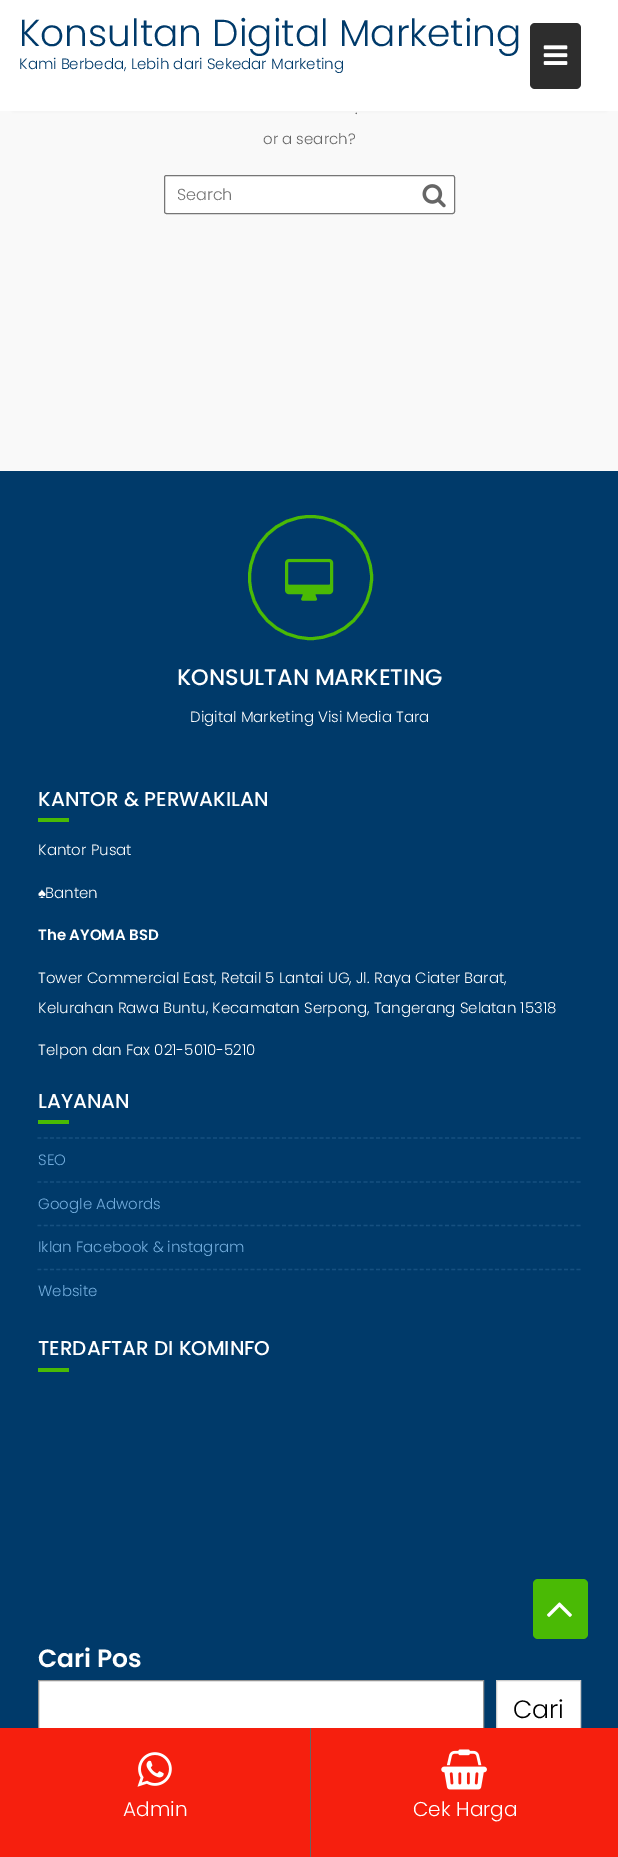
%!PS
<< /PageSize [618 1857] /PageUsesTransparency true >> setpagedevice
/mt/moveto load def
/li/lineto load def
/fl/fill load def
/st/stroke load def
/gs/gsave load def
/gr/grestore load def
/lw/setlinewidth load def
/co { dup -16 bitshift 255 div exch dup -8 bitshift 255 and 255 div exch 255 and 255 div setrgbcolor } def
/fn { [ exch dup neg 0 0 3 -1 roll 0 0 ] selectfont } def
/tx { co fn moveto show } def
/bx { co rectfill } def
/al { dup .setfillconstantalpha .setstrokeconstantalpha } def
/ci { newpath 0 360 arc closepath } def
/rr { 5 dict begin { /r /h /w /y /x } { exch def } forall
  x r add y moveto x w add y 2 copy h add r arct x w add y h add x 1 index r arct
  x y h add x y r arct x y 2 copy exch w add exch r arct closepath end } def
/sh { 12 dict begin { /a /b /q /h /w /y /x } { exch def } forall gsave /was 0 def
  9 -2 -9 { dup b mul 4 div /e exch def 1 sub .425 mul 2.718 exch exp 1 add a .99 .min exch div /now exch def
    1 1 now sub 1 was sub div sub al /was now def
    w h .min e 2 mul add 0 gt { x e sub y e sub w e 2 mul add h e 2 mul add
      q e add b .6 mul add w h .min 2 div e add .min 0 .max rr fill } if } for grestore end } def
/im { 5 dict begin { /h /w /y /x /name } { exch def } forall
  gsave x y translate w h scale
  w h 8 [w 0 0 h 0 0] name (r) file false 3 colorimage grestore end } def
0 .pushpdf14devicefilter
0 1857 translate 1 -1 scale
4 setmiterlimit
0 0 618 1857 16#F9F9F9 bx
16#EEEEEE co
13 25 593 86 0 2.5 .9 sh
0 0 618 111 16#FFFFFF bx
16#2D2D2D co
530 23 51 66 5 rr fl
(media/1.raw) 543 45 25 20 im
16#FFFFFF co
164.5 175.5 290 38 2 rr gs fl gr
16#767676 co
st
(media/2.raw) 422 184 24 24 im
0 471 618 1257 16#003A6A bx
16#4ABA05 co
3 lw
310.5 577.5 61 ci st
(media/3.raw) 285 558 49 43 im
38 818 31 4 16#4ABA05 bx
38 1120 31 4 16#4ABA05 bx
16#165080 co
1.2 lw
[3.75 2.52] 0 setdash
37.5 1138 mt 581 1138 li st
37.5 1182 mt 581 1182 li st
37.5 1225.5 mt 581 1225.5 li st
37.5 1269.5 mt 581 1269.5 li st
38 1368 31 4 16#4ABA05 bx
39 1681 444 47 16#FFFFFF bx
16#949494 co
1 lw
[] 0 setdash
38.5 1680.5 445 58 rectstroke
497 1681 83 47 16#FFFFFF bx
16#CCCCCC co
496.5 1680.5 84 58 rectstroke
16#4ABA05 co
533 1579 55 60 5 rr fl
(media/4.raw) 547 1602 25 15 im
0 1728 618 129 16#F61F0E bx
(media/5.raw) 137 1752 35 35 im
310 1728 1 129 16#666666 bx
(media/6.raw) 441 1749 46 41 im
(Konsultan Digital Marketing) 19 46 /Poppins-Light 37.5 16#003A6A tx
(Kami Berbeda, Lebih dari Sekedar Marketing) 19 69 /Poppins-Light 15 16#003A6A tx
(.) 355 114 /Poppins-Light 15 16#666666 tx
(or a search?) 263 144 /Poppins-Light 15 16#666666 tx
(Search) 177 200 /Poppins-Light 16 16#757575 tx
(KONSULTAN MARKETING) 177 685 /Poppins-Medium 22.5 16#FFFFFF tx
(Digital Marketing Visi Media Tara) 190 722 /Poppins-Light 15 16#FFFFFF tx
(KANTOR & PERWAKILAN) 38 806 /Poppins-Medium 20 16#FFFFFF tx
(Kantor Pusat) 38 855 /Poppins-Light 15 16#FFFFFF tx
(♠) 38 898 /LiberationSans-Regular 15 16#FFFFFF tx
(Banten) 45 898 /Poppins-Light 15 16#FFFFFF tx
(The AYOMA BSD) 38 940 /Poppins-SemiBold 15 16#FFFFFF tx
(Tower Commercial East, Retail 5 Lantai UG, Jl. Raya Ciater Barat,) 38 983 /Poppins-Light 15 16#FFFFFF tx
(Kelurahan Rawa Buntu, Kecamatan Serpong, Tangerang Selatan 15318) 38 1013 /Poppins-Light 15 16#FFFFFF tx
(Telpon dan Fax 021-5010-5210) 38 1055 /Poppins-Light 15 16#FFFFFF tx
(LAYANAN) 38 1108 /Poppins-Medium 20 16#FFFFFF tx
(SEO) 38 1165 /Poppins-Light 15 16#72ACDC tx
(Google Adwords) 38 1209 /Poppins-Light 15 16#72ACDC tx
(Iklan Facebook & instagram) 38 1252 /Poppins-Light 15 16#72ACDC tx
(Website) 38 1296 /Poppins-Light 15 16#72ACDC tx
(TERDAFTAR DI KOMINFO) 38 1355 /Poppins-Medium 20 16#FFFFFF tx
(Cari Pos) 38 1667 /Poppins-SemiBold 25 16#FFFFFF tx
(Cari) 513 1718 /Poppins-Light 25 16#000000 tx
(Admin) 123 1816 /Poppins-Light 20 16#FFFFFF tx
(Cek Harga) 413 1816 /Poppins-Light 20 16#FFFFFF tx
.poppdf14devicefilter showpage
